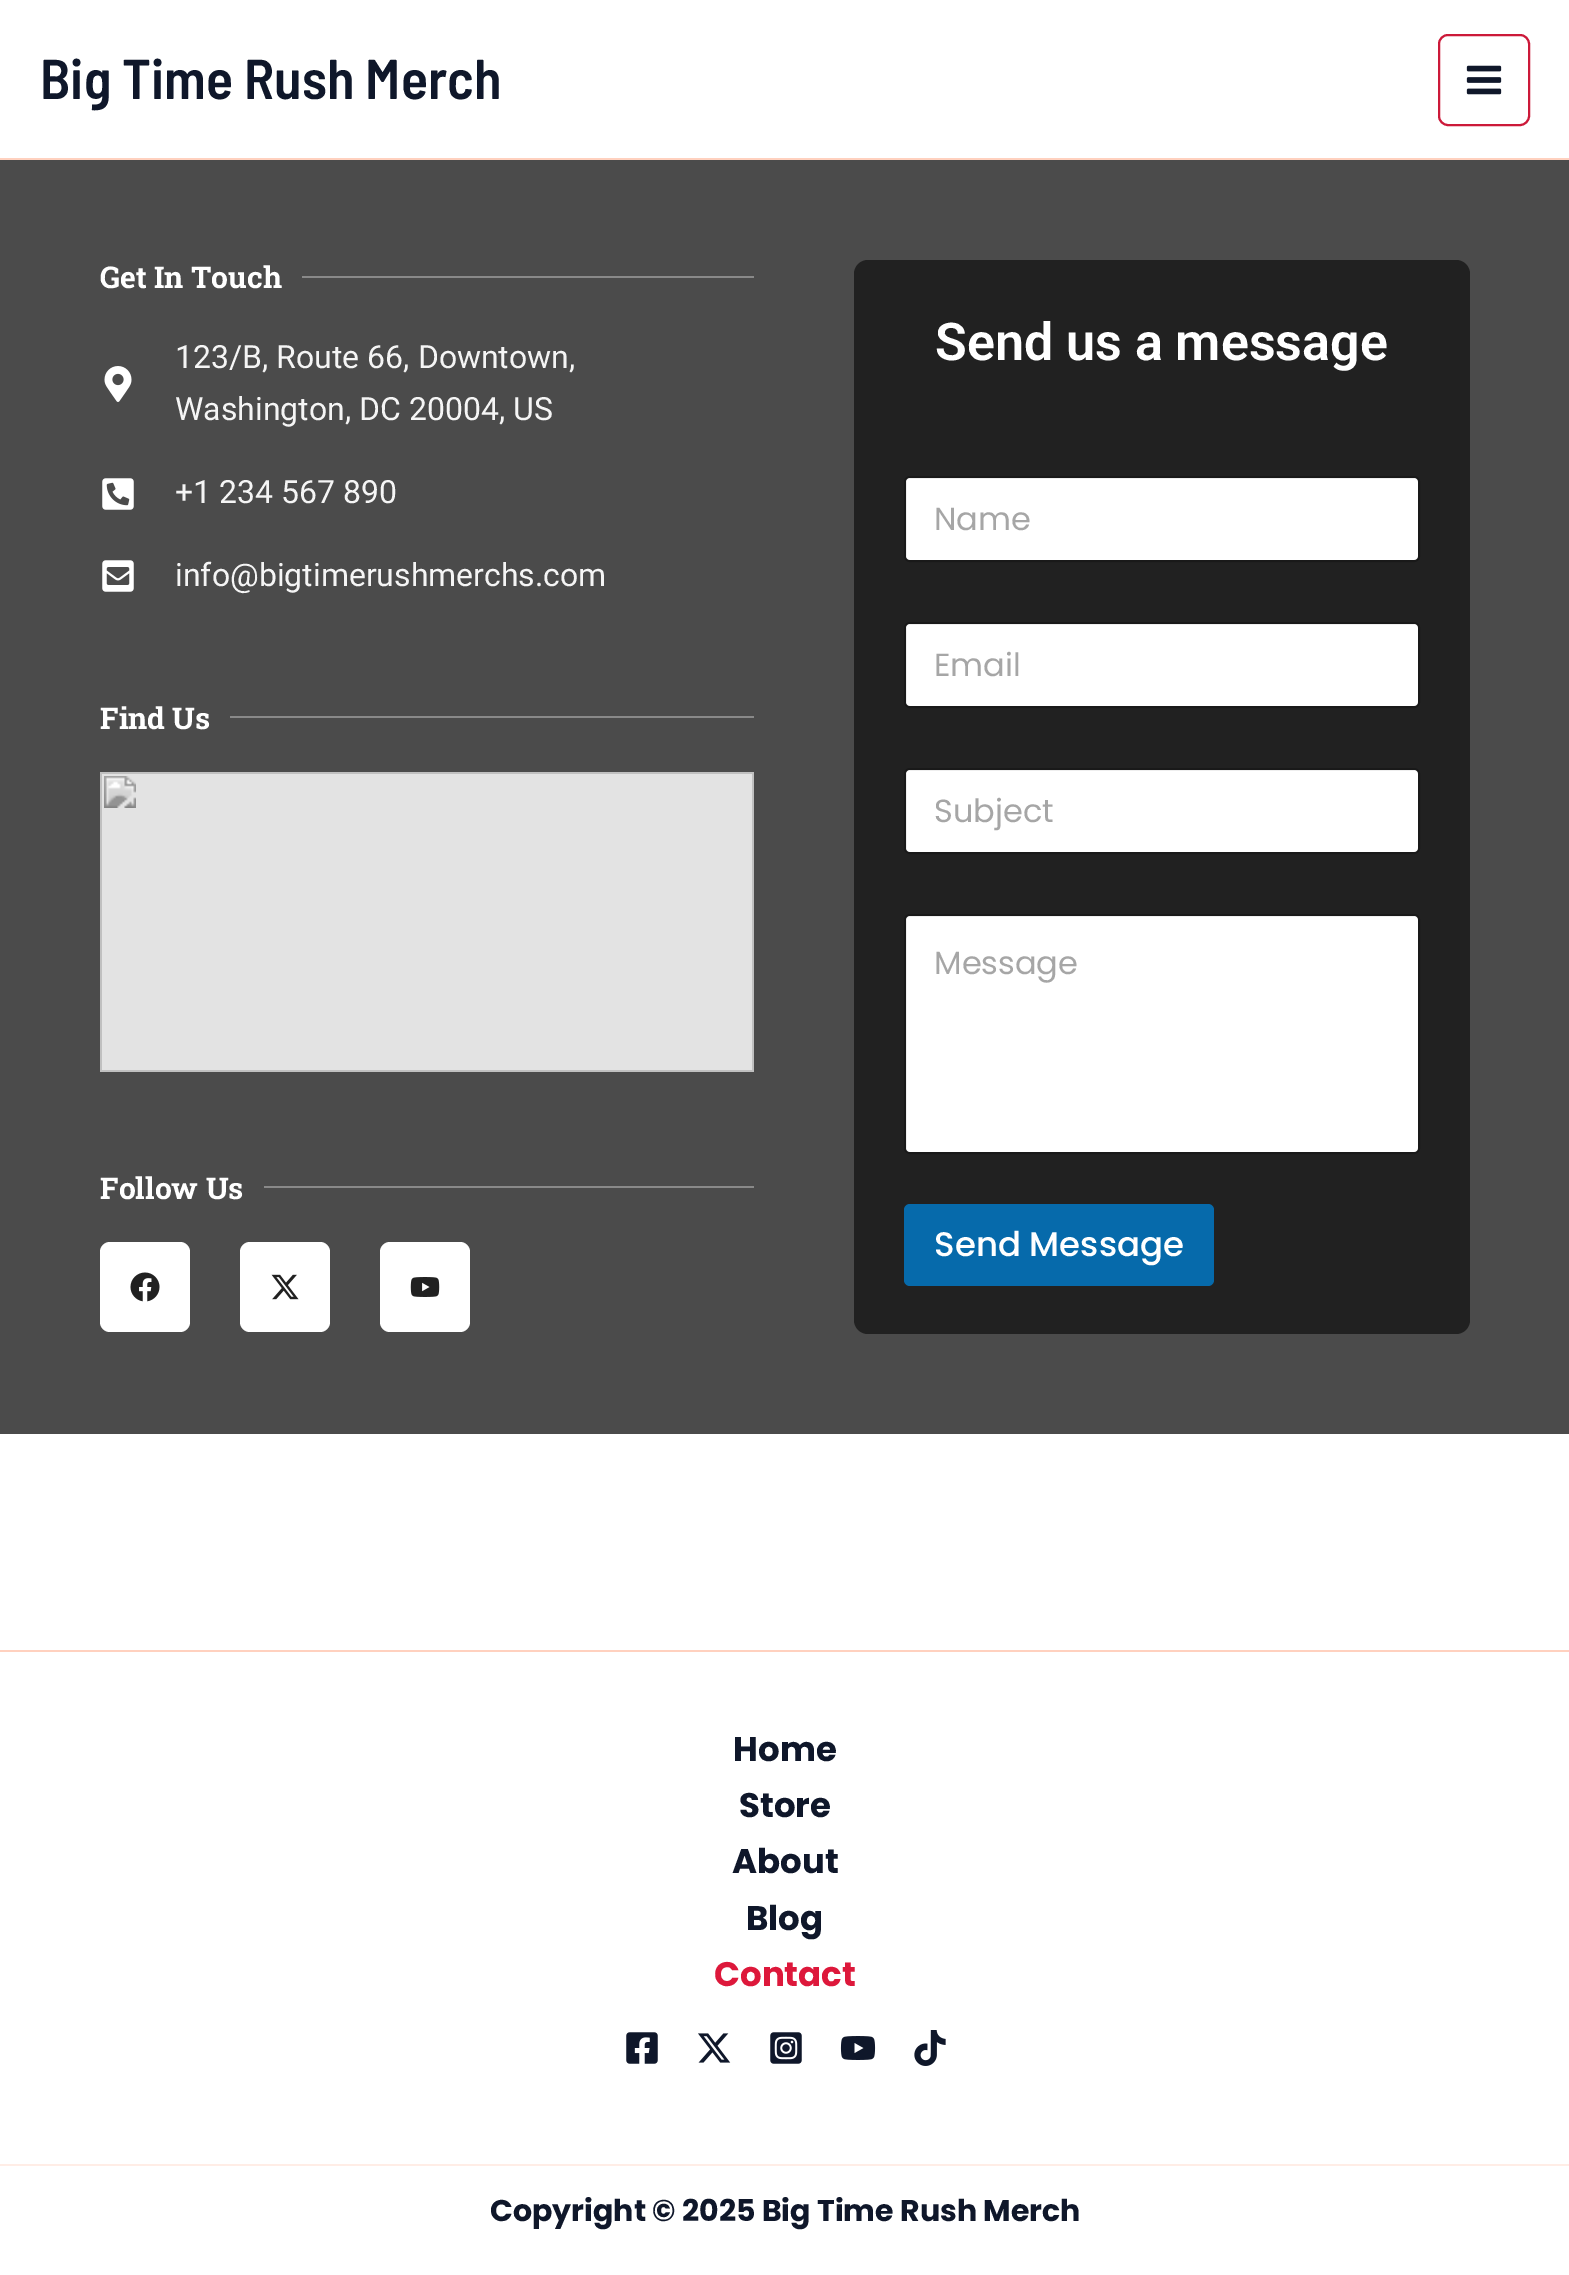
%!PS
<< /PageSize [1569 2275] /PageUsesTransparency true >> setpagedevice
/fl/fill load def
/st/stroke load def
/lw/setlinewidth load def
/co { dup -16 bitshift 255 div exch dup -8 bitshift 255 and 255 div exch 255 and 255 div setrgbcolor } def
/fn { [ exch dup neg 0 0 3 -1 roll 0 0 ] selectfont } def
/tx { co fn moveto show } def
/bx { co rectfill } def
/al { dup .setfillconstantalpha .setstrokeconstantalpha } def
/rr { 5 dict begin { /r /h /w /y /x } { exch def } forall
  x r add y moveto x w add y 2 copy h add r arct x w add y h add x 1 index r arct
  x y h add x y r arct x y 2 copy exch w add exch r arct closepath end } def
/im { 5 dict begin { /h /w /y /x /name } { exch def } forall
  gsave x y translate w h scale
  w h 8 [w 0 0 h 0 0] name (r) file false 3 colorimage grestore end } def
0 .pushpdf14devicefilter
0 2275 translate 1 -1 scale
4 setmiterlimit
0 0 1569 2275 16#FFFFFF bx
0 158 1569 2 16#FFD1BF bx
16#CC1939 co
2 lw
1439 35 90 90 9 rr st
(media/1.raw) 1466 65 36 30 im
0 160 1569 1274 16#4B4B4B bx
302 276 452 2 16#898989 bx
(media/2.raw) 104 366 28 36 im
(media/3.raw) 102 478 32 32 im
(media/4.raw) 102 560 32 32 im
230 716 524 2 16#898989 bx
(media/5.raw) 100 772 654 300 im
264 1186 490 2 16#898989 bx
16#FFFFFF co
100 1242 90 90 10 rr fl
(media/6.raw) 130 1272 30 30 im
240 1242 90 90 10 rr fl
(media/7.raw) 271 1274 28 26 im
380 1242 90 90 10 rr fl
(media/8.raw) 410 1277 30 20 im
16#212121 co
854 260 616 1074 14 rr fl
16#FFFFFF co
906 478 512 82 4 rr fl
0.25 al
16#000000 co
905 477 514 84 5 rr st
1 al
16#FFFFFF co
906 624 512 82 4 rr fl
0.25 al
16#000000 co
905 623 514 84 5 rr st
1 al
16#FFFFFF co
906 770 512 82 4 rr fl
0.25 al
16#000000 co
905 769 514 84 5 rr st
1 al
16#FFFFFF co
906 916 512 236 4 rr fl
0.25 al
16#000000 co
905 915 514 238 5 rr st
1 al
16#066AAB co
904 1204 310 82 6 rr fl
0 1650 1569 2 16#FFD1BF bx
(media/9.raw) 626 2032 32 32 im
(media/10.raw) 698 2033 33 30 im
(media/11.raw) 770 2032 32 32 im
(media/12.raw) 840 2036 36 24 im
(media/13.raw) 914 2030 32 36 im
0 2164 1569 2 16#FFEDE6 bx
(Big Time Rush Merch) 40 99 /BarlowSemiCondensed-SemiBold 56 16#0F172A tx
(Get In Touch) 100 288 /RobotoSlab-Bold 30 16#FFFFFF tx
(123/B, Route 66, Downtown,) 175 368 /Roboto-Regular 32 16#F5F5F5 tx
(Washington, DC 20004, US) 175 420 /Roboto-Regular 32 16#F5F5F5 tx
(+1 234 567 890) 175 503 /Roboto-Regular 32 16#F5F5F5 tx
(info@bigtimerushmerchs.com) 175 586 /Roboto-Regular 32 16#F5F5F5 tx
(Find Us) 100 729 /RobotoSlab-Bold 30 16#FFFFFF tx
(Follow Us) 100 1199 /RobotoSlab-Bold 30 16#FFFFFF tx
(Send us a message) 935 360 /Roboto-SemiBold 52 16#FFFFFF tx
(Name) 934 530 /Poppins-Regular 32 16#A6A6A6 tx
(Email) 934 676 /Poppins-Regular 32 16#A6A6A6 tx
(Subject) 934 822 /Poppins-Regular 32 16#A6A6A6 tx
(Message) 934 974 /Poppins-Regular 32 16#A6A6A6 tx
(Send Message) 934 1256 /Poppins-Medium 34 16#FFFFFF tx
(Home) 733 1761 /Poppins-Bold 34 16#0F172A tx
(Store) 739 1817 /Poppins-Bold 34 16#0F172A tx
(About) 732 1873 /Poppins-Bold 34 16#0F172A tx
(Blog) 746 1930 /Poppins-Bold 34 16#0F172A tx
(Contact) 714 1986 /Poppins-Bold 34 16#DD183B tx
(Copyright © 2025 Big Time Rush Merch) 490 2221 /Poppins-Bold 30 16#0F172A tx
.poppdf14devicefilter showpage
